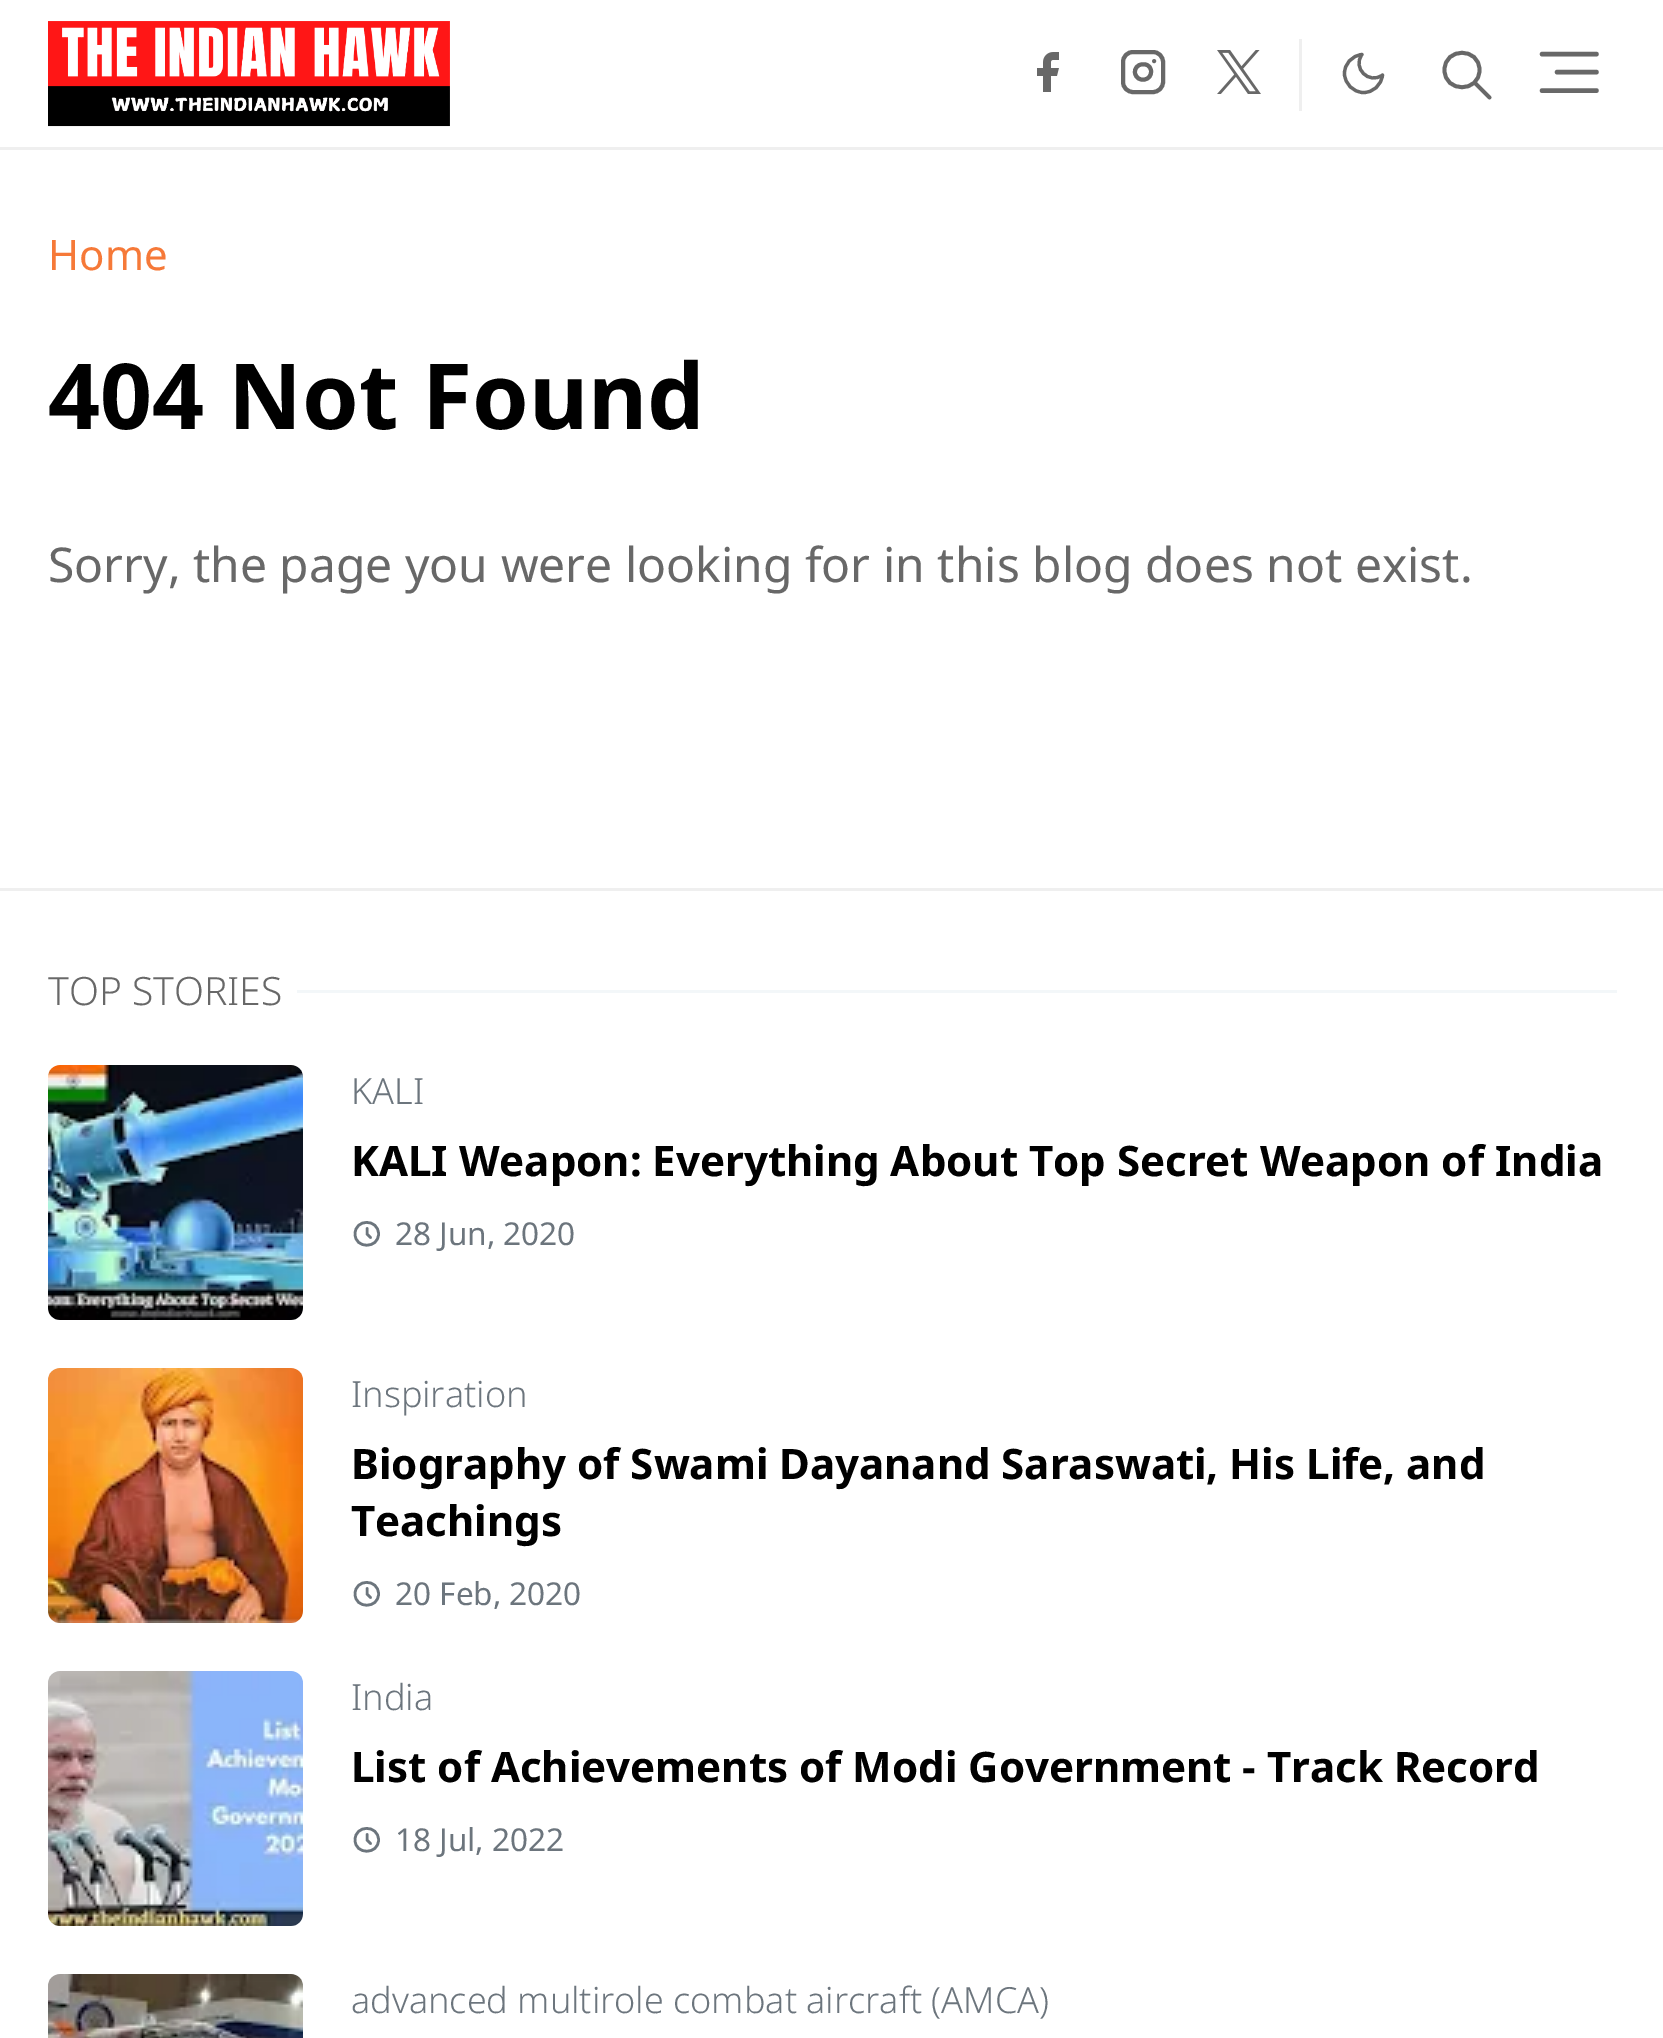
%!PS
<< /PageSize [1663 2038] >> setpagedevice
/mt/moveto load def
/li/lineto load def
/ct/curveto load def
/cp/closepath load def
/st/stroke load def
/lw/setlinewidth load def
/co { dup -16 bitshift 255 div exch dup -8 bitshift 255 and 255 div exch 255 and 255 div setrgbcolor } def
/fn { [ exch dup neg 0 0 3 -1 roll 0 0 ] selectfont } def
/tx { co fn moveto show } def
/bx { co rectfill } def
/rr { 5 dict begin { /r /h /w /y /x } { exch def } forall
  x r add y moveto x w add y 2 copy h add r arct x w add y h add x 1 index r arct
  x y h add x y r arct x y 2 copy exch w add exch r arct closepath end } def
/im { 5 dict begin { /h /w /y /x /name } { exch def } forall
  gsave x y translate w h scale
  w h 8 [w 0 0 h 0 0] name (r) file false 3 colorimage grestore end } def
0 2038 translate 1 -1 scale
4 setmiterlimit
0 0 1663 2038 16#FFFFFF bx
0 147 1663 3 16#EFEFEF bx
(media/1.raw) 48 21 402 106 im
1299 39 3 72 16#EFEFEF bx
(media/2.raw) 1037 52 22 40 im
16#686868 co
4 lw
1123 52 40 40 10 rr st
1 setlinecap
1 setlinejoin
1151 70.5 mt 1152.5 81 1137 83.5 1135 73 ct 1133.5 63 1149.5 60.5 1151 70.5 ct cp 1154 61 mt 1154 61 li st
(media/3.raw) 1217 50 44 44 im
3.2 lw
1382.5 75 mt 1381.5 85 1373 93 1363 92.5 ct 1353 92 1345 84 1344.5 74 ct 1344 64 1352 55.5 1362 54.5 ct 1352 68 1369 85 1382.5 75 ct cp st
3.8 lw
1489.5 97.5 mt 1474.5 82.5 li 1479.5 70 mt 1479.5 93 1444.5 93 1444.5 70 ct 1444.5 47 1479.5 47 1479.5 70 ct cp st
4.5 lw
1542 54 mt 1596.5 54 li 1557 72 mt 1596.5 72 li 1542 90.5 mt 1596.5 90.5 li st
0 888 1663 3 16#EFEFEF bx
297 990 1320 3 16#F3F7F9 bx
(media/4.raw) 48 1065 255 255 im
16#6C757D co
2.6 lw
367 1228.5 mt 367 1234 li 370.5 1237.5 li 378.5 1234 mt 378.5 1249 355 1249 355 1234 ct 355 1218.5 378.5 1218.5 378.5 1234 ct cp st
(media/5.raw) 48 1368 255 255 im
367 1588.5 mt 367 1594 li 370.5 1597.5 li 378.5 1594 mt 378.5 1609 355 1609 355 1594 ct 355 1578.5 378.5 1578.5 378.5 1594 ct cp st
(media/6.raw) 48 1671 255 255 im
367 1834.5 mt 367 1840 li 370.5 1843.5 li 378.5 1840 mt 378.5 1855 355 1855 355 1840 ct 355 1824.5 378.5 1824.5 378.5 1840 ct cp st
(media/7.raw) 48 1974 255 64 im
(Home) 48 270 /NotoSans-Regular 42 16#F67938 tx
(404 Not Found) 48 429 /NotoSans-Bold 91 16#000000 tx
(Sorry, the page you were looking for in this blog does not exist.) 48 582 /NotoSans-Regular 48 16#686868 tx
(TOP STORIES) 48 1005 /NotoSans-Light 39 16#686868 tx
(KALI) 351 1104 /NotoSans-Light 36 16#6C757D tx
(KALI Weapon: Everything About Top Secret Weapon of India) 351 1176 /NotoSans-Bold 42 16#000000 tx
(28 Jun, 2020) 395 1245 /NotoSans-Regular 31.5 16#6C757D tx
(Inspiration) 351 1407 /NotoSans-Light 36 16#6C757D tx
(Biography of Swami Dayanand Saraswati, His Life, and) 351 1479 /NotoSans-Bold 42 16#000000 tx
(Teachings) 351 1536 /NotoSans-Bold 42 16#000000 tx
(20 Feb, 2020) 395 1605 /NotoSans-Regular 31.5 16#6C757D tx
(India) 351 1710 /NotoSans-Light 36 16#6C757D tx
(List of Achievements of Modi Government - Track Record) 351 1782 /NotoSans-Bold 42 16#000000 tx
(18 Jul, 2022) 395 1851 /NotoSans-Regular 31.5 16#6C757D tx
(advanced multirole combat aircraft \(AMCA\)) 351 2013 /NotoSans-Light 36 16#6C757D tx
showpage
